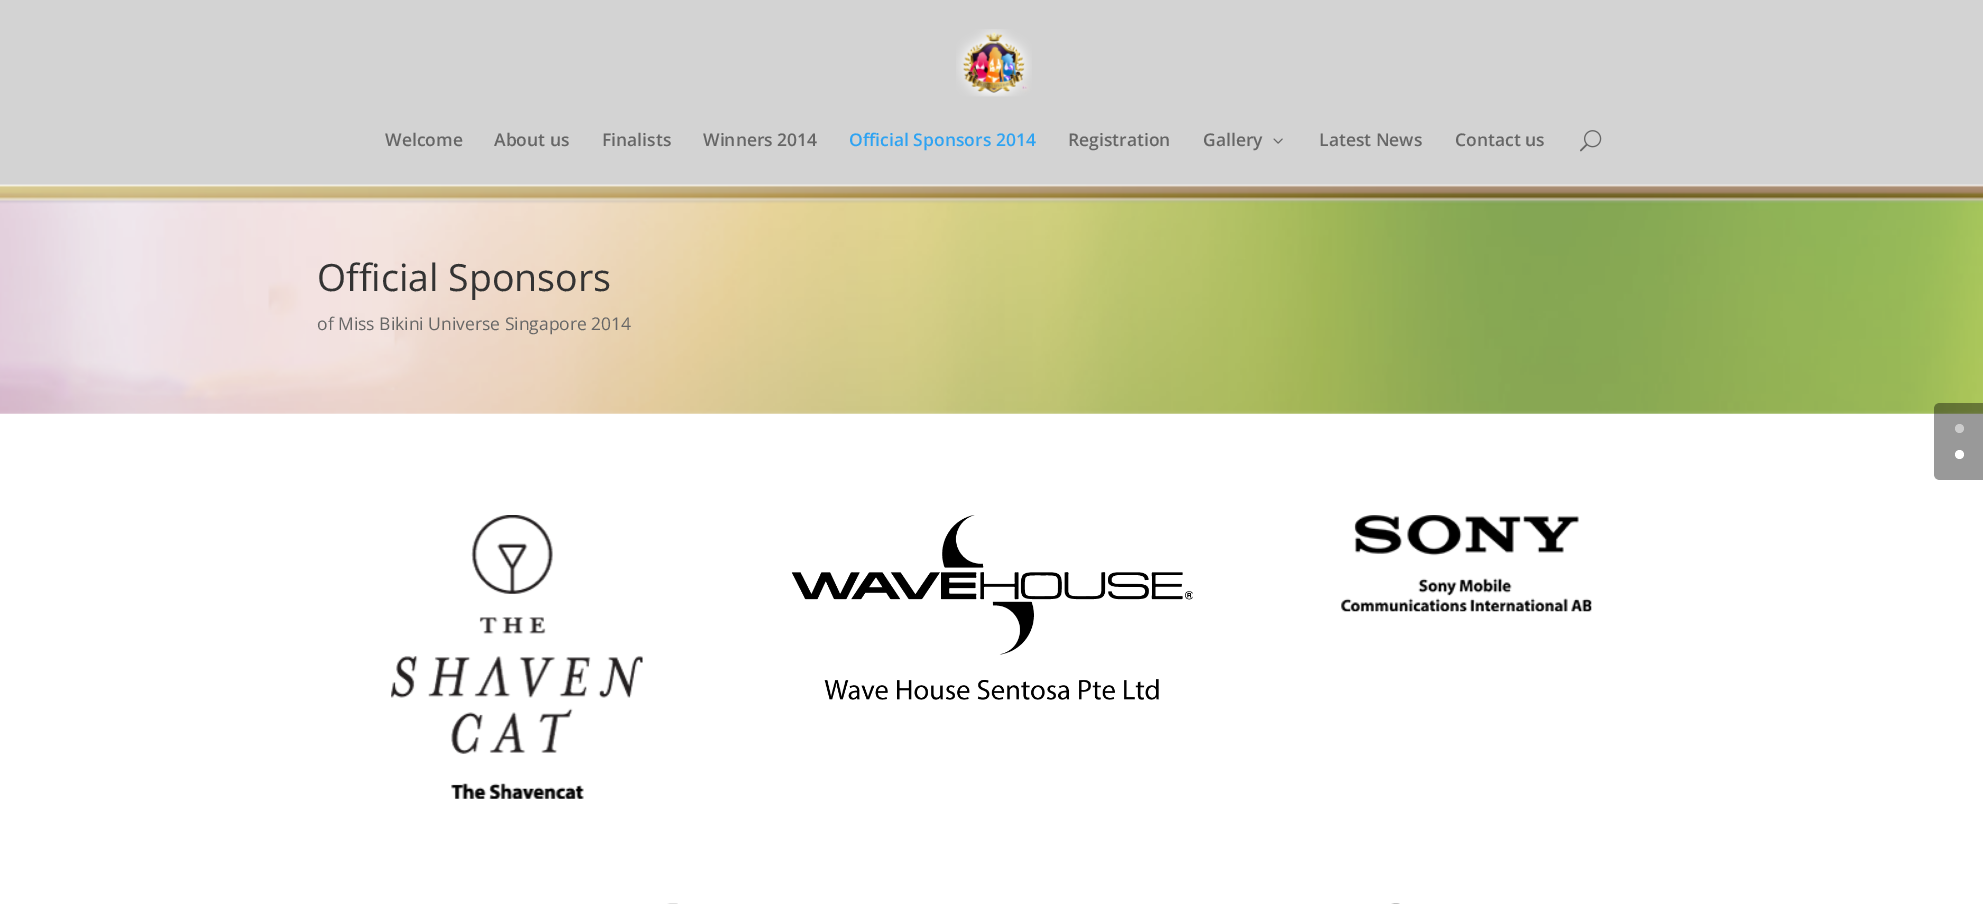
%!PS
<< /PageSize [1983 904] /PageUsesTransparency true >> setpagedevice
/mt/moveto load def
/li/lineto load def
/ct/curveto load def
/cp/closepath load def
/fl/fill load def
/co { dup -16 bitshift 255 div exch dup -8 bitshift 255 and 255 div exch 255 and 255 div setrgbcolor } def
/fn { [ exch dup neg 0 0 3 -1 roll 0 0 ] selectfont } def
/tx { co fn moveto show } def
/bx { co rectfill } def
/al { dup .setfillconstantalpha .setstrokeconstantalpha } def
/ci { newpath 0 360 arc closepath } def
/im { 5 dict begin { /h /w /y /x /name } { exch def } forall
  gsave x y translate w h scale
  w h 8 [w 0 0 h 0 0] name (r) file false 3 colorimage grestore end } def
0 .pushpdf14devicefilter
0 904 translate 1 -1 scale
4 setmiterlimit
0 0 1983 904 16#FFFFFF bx
(media/4.raw) 0 184 1983 230 im
0.1 al
16#000000 co
0 184 mt 0 185 li 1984 185 li 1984 1 li 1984 184 li cp fl
1 al
0 0 1983 184 16#D3D3D3 bx
(media/1.raw) 956 29 76 68 im
(media/2.raw) 1273 138 10 6 im
(media/3.raw) 1580 130 22 22 im
(media/5.raw) 391 515 252 284 im
(media/6.raw) 791 515 402 185 im
(media/7.raw) 1341 515 251 97 im
(media/8.raw) 667 903 11 1 im
(media/9.raw) 1391 903 9 1 im
0.4 al
16#000000 co
1940 403 mt 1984 403 li 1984 480 li 1940 480 li 1936.5 480 1934 477.5 1934 474 ct 1934 409 li 1934 405.5 1936.5 403 1940 403 ct cp fl
1 al
16#CCCCCC co
1959.5 428.5 4.5 ci fl
16#FFFFFF co
1959.5 454.5 4.5 ci fl
(Welcome) 385 146 /OpenSans-SemiBold 17.5 16#666666 tx
(About us) 494 146 /OpenSans-SemiBold 17.5 16#666666 tx
(Finalists) 602 146 /OpenSans-SemiBold 17.5 16#666666 tx
(Winners 2014) 703 146 /OpenSans-SemiBold 17.5 16#666666 tx
(Official Sponsors 2014) 849 146 /OpenSans-SemiBold 17.5 16#2EA3F2 tx
(Registration) 1068 146 /OpenSans-SemiBold 17.5 16#666666 tx
(Gallery) 1203 146 /OpenSans-SemiBold 17.5 16#666666 tx
(Latest News) 1319 146 /OpenSans-SemiBold 17.5 16#666666 tx
(Contact us) 1455 146 /OpenSans-SemiBold 17.5 16#666666 tx
(Official Sponsors) 317 291 /OpenSans-Regular 37.5 16#333333 tx
(of Miss Bikini Universe Singapore 2014) 317 330 /OpenSans-Regular 17.5 16#666666 tx
.poppdf14devicefilter showpage
